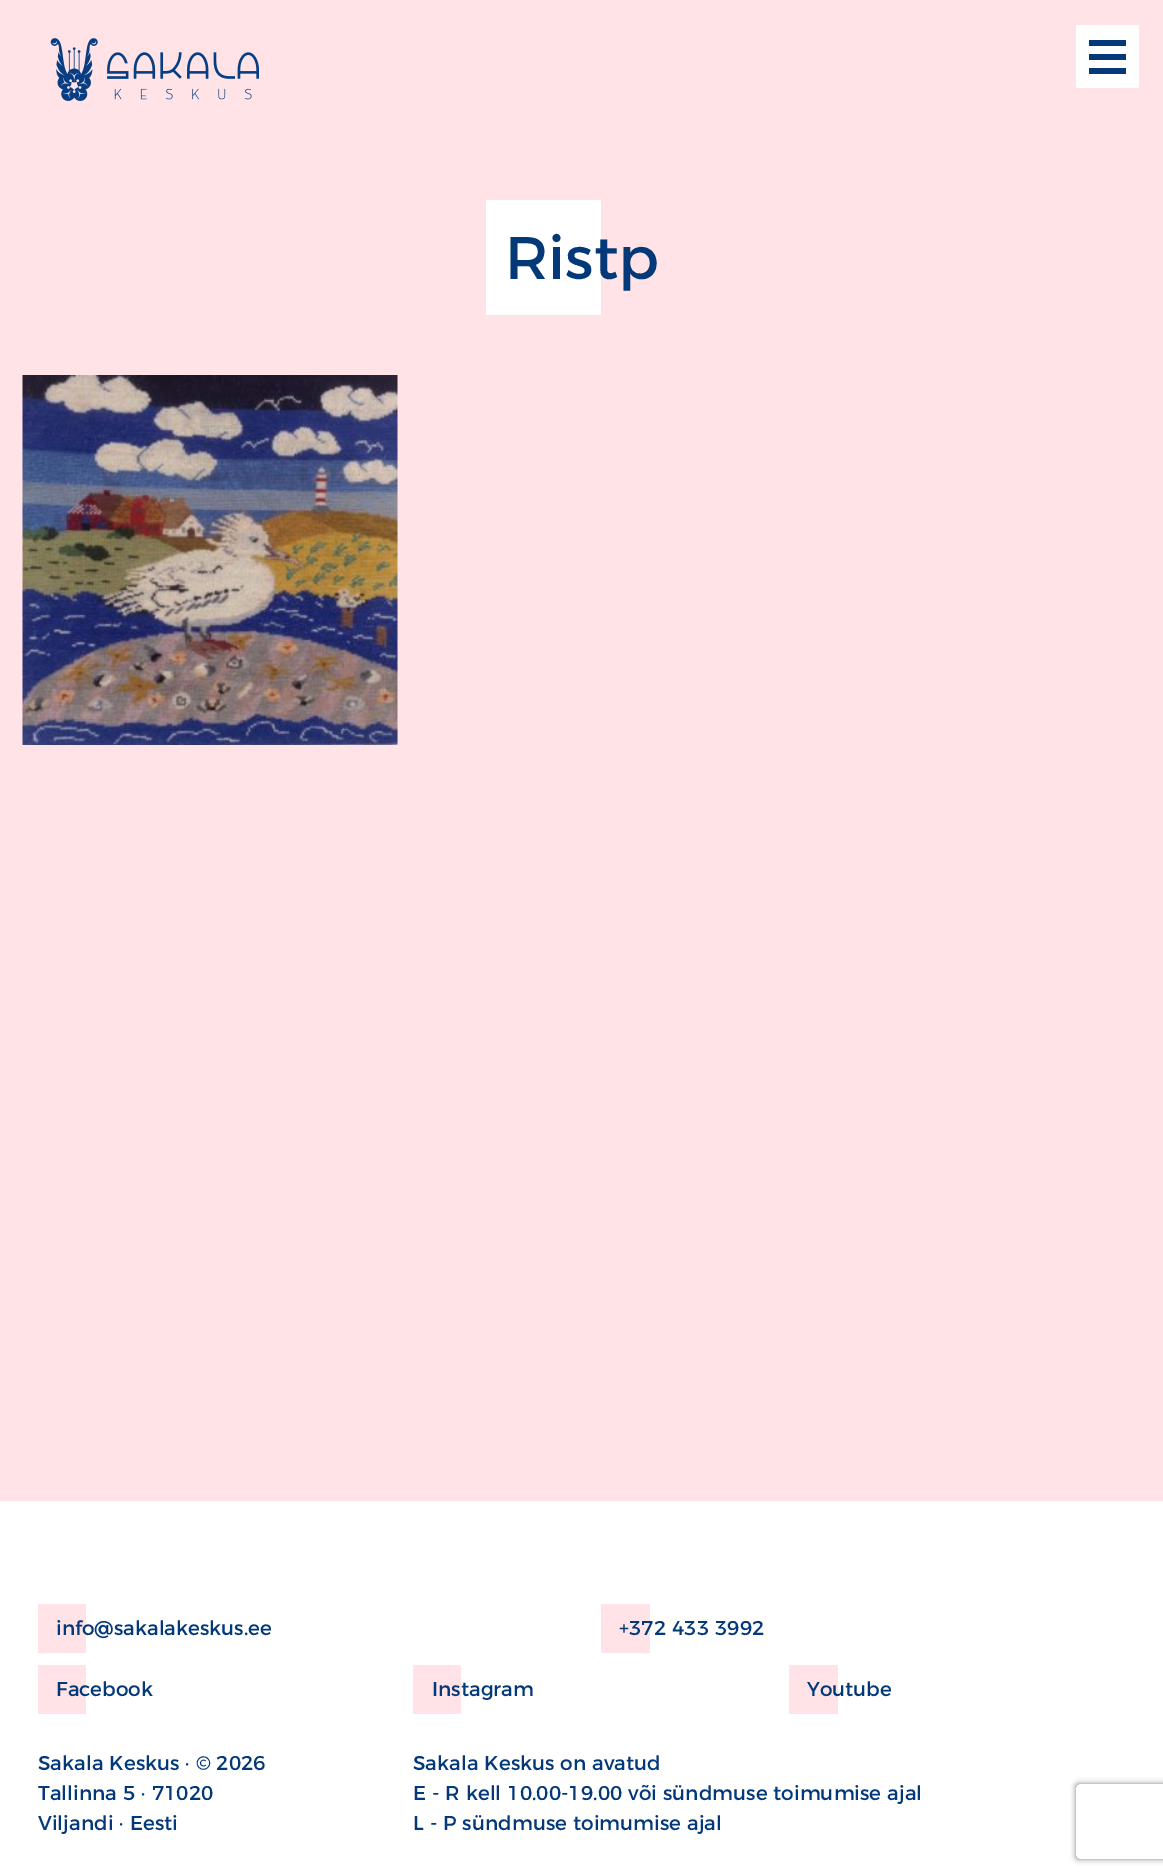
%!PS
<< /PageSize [1163 1876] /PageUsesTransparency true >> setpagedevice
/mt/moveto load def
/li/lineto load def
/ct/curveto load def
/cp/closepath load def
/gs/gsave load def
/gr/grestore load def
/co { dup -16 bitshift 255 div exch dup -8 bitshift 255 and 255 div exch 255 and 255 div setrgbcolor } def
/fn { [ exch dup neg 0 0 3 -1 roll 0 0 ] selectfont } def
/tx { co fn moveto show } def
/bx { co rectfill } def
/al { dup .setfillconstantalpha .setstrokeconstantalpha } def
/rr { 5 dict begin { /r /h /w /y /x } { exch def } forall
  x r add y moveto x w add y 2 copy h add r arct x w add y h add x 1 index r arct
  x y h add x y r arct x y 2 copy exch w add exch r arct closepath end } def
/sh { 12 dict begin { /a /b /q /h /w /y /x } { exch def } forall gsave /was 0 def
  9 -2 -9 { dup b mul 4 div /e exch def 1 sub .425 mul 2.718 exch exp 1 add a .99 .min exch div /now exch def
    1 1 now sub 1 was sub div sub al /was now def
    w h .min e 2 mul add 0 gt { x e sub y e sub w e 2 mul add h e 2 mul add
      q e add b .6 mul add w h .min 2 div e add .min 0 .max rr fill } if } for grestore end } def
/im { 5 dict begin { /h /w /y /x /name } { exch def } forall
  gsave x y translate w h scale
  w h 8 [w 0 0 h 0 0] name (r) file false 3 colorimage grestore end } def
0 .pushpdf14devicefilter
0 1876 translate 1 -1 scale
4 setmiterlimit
0 0 1163 1876 16#FFE3E6 bx
1076 25 63 63 16#FFFFFF bx
1089 40 37 6 16#033879 bx
1089 54 37 6 16#033879 bx
1089 68 37 6 16#033879 bx
(media/1.raw) 50 38 209 63 im
486 200 115 115 16#FFFFFF bx
(media/2.raw) 22 375 376 370 im
0 1501 1163 375 16#FFFFFF bx
38 1604 48 49 16#FFE3E6 bx
601 1604 49 49 16#FFE3E6 bx
38 1665 48 49 16#FFE3E6 bx
413 1665 48 49 16#FFE3E6 bx
789 1665 49 49 16#FFE3E6 bx
gs
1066 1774 mt 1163 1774 li 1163 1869 li 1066 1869 li cp 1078.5 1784 mt 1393.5 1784 li 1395 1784 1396 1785 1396 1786.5 ct 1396 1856.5 li 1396 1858 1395 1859 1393.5 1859 ct 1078.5 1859 li 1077 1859 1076 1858 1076 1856.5 ct 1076 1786.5 li 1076 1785 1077 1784 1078.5 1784 ct cp eoclip newpath
16#808080 co
1076 1784 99 75 2.5 3 1 sh
gr
(Ristp) 505 279 /Montserrat-Regular 60 16#033879 tx
(info@sakalakeskus.ee) 56 1635 /Montserrat-Regular 20 16#033879 tx
(+372 433 3992) 619 1635 /Montserrat-Regular 20 16#033879 tx
(Facebook) 56 1696 /Montserrat-Regular 20 16#033879 tx
(Instagram) 432 1696 /Montserrat-Regular 20 16#033879 tx
(Youtube) 807 1696 /Montserrat-Regular 20 16#033879 tx
(Sakala Keskus · © 2026) 38 1770 /Montserrat-Regular 20 16#033879 tx
(Tallinna 5 · 71020) 38 1800 /Montserrat-Regular 20 16#033879 tx
(Viljandi · Eesti) 38 1830 /Montserrat-Regular 20 16#033879 tx
(Sakala Keskus on avatud) 413 1770 /Montserrat-Regular 20 16#033879 tx
(E - R kell 10.00-19.00 või sündmuse toimumise ajal) 413 1800 /Montserrat-Regular 20 16#033879 tx
(L - P sündmuse toimumise ajal) 413 1830 /Montserrat-Regular 20 16#033879 tx
.poppdf14devicefilter showpage
